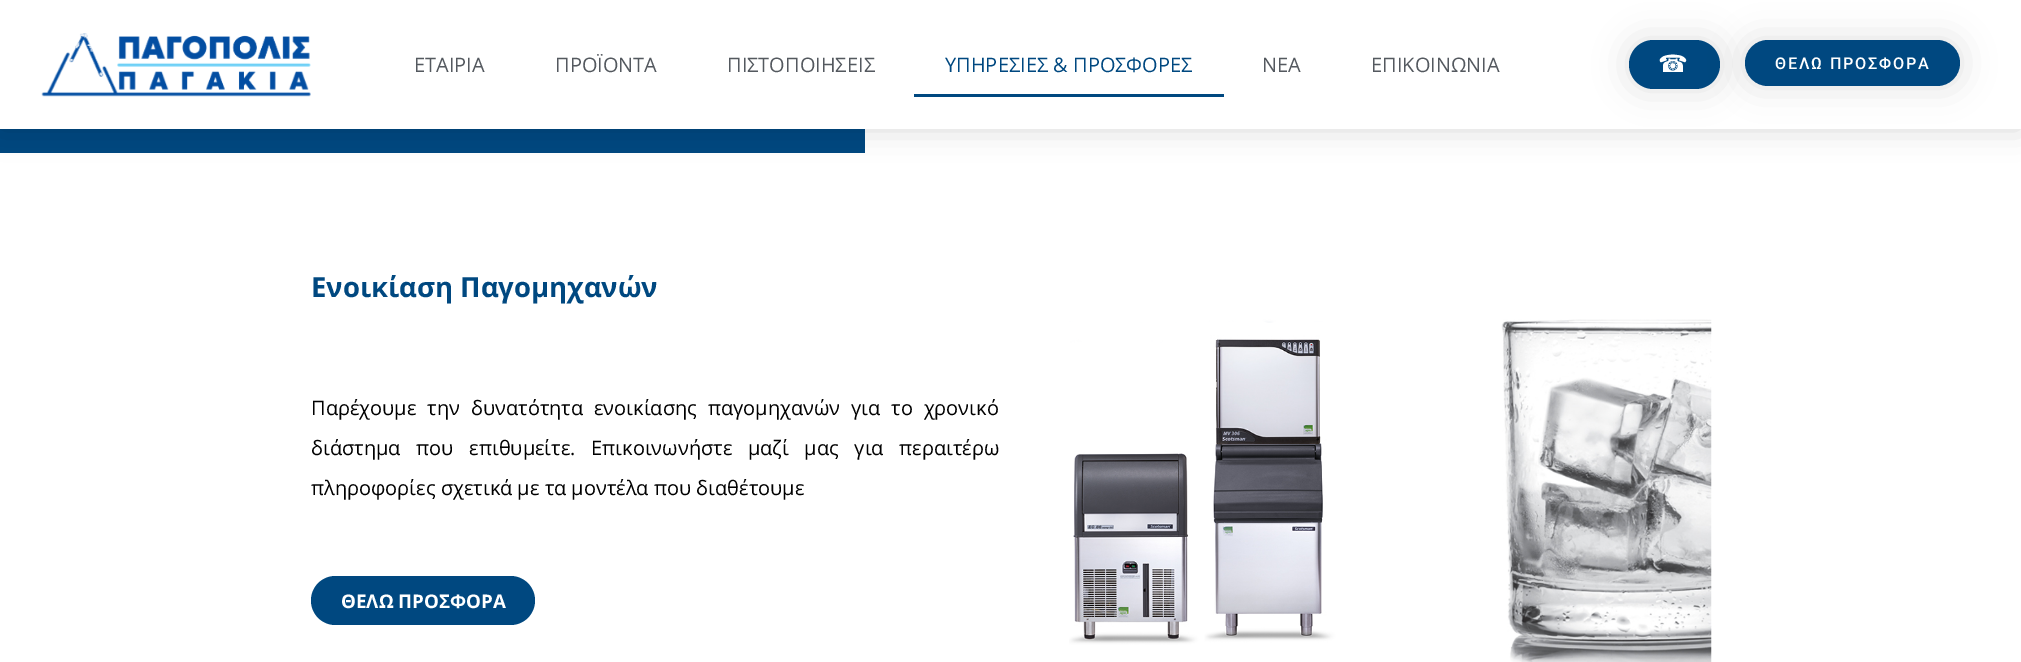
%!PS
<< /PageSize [2021 662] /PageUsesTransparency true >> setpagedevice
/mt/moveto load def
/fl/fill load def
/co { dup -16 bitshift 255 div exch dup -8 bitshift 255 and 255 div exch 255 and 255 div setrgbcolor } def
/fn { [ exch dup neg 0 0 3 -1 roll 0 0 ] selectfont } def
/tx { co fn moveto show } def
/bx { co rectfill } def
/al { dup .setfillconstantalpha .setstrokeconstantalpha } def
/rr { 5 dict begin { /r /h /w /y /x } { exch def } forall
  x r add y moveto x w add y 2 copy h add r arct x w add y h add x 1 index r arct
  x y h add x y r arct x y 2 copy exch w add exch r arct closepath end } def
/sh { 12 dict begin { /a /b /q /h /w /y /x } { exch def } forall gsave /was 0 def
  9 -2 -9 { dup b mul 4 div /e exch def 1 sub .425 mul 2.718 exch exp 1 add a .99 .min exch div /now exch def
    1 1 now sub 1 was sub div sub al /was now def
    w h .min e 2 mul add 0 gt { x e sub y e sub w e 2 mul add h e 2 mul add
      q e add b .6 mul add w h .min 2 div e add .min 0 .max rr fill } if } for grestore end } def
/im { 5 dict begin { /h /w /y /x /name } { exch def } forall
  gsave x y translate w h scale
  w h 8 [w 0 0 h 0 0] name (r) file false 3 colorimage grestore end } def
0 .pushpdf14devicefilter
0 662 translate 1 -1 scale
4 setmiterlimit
0 0 2021 662 16#FFFFFF bx
0 129 865 24 16#004880 bx
16#000000 co
0 0 2021 129 0 15 .15 sh
0 0 2021 129 16#FFFFFF bx
(media/1.raw) 41 33 270 64 im
914 94 310 3 16#004880 bx
16#000000 co
1629 40 91 49 24.5 17 .12 sh
16#004880 co
1629 40 91 49 24.5 rr fl
16#000000 co
1745 40 215 46 23 17 .12 sh
16#004880 co
1745 40 215 46 23 rr fl
311 576 224 49 24.5 rr fl
(media/2.raw) 1069 319 643 343 im
(ΕΤΑΙΡΙΑ) 414 72 /OpenSans-Regular 20 16#54595F tx
(ΠΡΟΪΟΝΤΑ) 555 72 /OpenSans-Regular 20 16#54595F tx
(ΠΙΣΤΟΠΟΙΗΣΕΙΣ) 727 72 /OpenSans-Regular 20 16#54595F tx
(ΥΠΗΡΕΣΙΕΣ & ΠΡΟΣΦΟΡΕΣ) 945 72 /OpenSans-Regular 20 16#004880 tx
(ΝΕΑ) 1262 72 /OpenSans-Regular 20 16#54595F tx
(ΕΠΙΚΟΙΝΩΝΙΑ) 1371 72 /OpenSans-Regular 20 16#54595F tx
/DejaVuSans-Regular 24 fn
16#FFFFFF co
1658 72 mt 1.75 0 (☎) ashow
/Roboto-Medium 16.25 fn
1775 69 mt 1.75 0 (ΘEΛΩ ΠΡΟΣΦΟΡA) ashow
(Ενοικίαση Παγομηχανών) 311 297 /OpenSans-Bold 27.5 16#004880 tx
/OpenSans-Regular 20 fn
16#000000 co
311 415 mt 5.75 0 32 (Παρέχουμε την δυνατότητα ενοικίασης παγομηχανών για το χρονικό) widthshow
311 455 mt 10.5 0 32 (διάστημα που επιθυμείτε. Επικοινωνήστε μαζί μας για περαιτέρω) widthshow
(πληροφορίες σχετικά με τα μοντέλα που διαθέτουμε) 311 495 /OpenSans-Regular 20 16#000000 tx
(ΘEΛΩ ΠΡΟΣΦΟΡA) 341 608 /OpenSans-Bold 18.75 16#FFFFFF tx
.poppdf14devicefilter showpage
